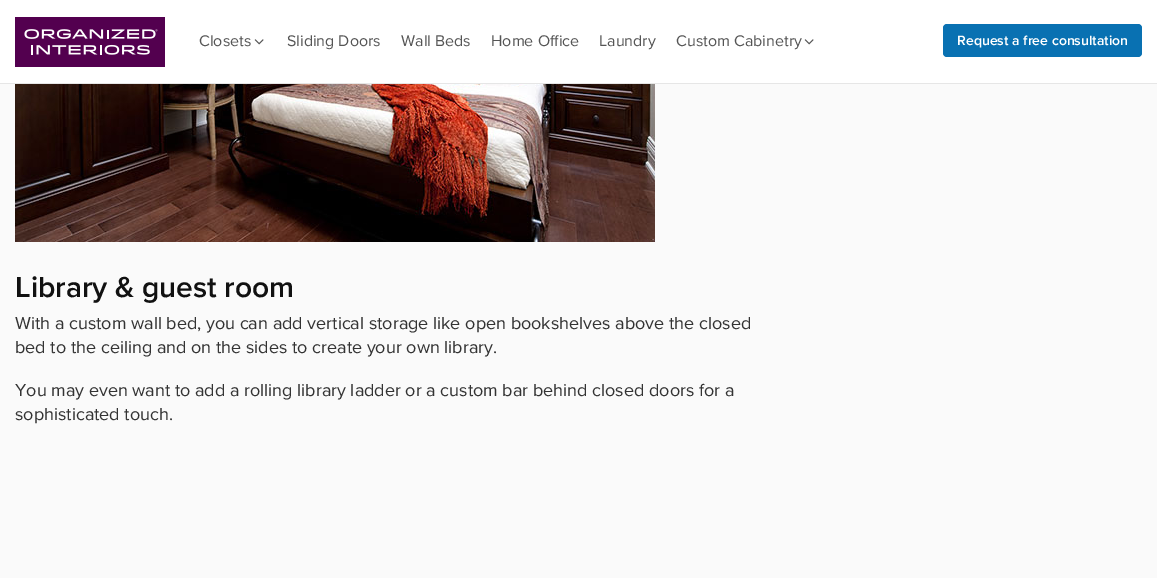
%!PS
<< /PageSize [1157 578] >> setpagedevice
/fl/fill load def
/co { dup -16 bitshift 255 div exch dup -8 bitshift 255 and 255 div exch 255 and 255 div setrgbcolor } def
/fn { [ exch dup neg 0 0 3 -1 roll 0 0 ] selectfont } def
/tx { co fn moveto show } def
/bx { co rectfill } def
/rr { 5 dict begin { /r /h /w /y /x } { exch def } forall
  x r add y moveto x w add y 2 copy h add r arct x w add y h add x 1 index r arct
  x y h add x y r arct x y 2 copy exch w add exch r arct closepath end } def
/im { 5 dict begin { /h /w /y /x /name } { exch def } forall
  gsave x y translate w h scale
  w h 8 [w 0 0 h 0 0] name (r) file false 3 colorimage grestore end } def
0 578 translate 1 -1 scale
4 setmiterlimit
0 0 1157 578 16#FAFAFA bx
0 0 1157 83 16#FFFFFF bx
0 83 1157 1 16#E6E6E6 bx
(media/1.raw) 15 17 150 50 im
(media/2.raw) 254 39 10 6 im
(media/2.raw) 804 39 10 6 im
16#0971B2 co
943 24 199 33 4 rr fl
(media/3.raw) 15 84 640 158 im
(Closets) 199 46 /ProximaNova-Regular 16 16#555555 tx
(Sliding Doors) 287 46 /ProximaNova-Regular 16 16#555555 tx
(Wall Beds) 401 46 /ProximaNova-Regular 16 16#555555 tx
(Home Office) 491 46 /ProximaNova-Regular 16 16#555555 tx
(Laundry) 599 46 /ProximaNova-Regular 16 16#555555 tx
(Custom Cabinetry) 676 46 /ProximaNova-Regular 16 16#555555 tx
(Request a free consultation) 957 45 /ProximaNova-SemiBold 14 16#FFFFFF tx
(Library & guest room) 15 297 /ProximaNova-SemiBold 30 16#111111 tx
(With a custom wall bed, you can add vertical storage like open bookshelves above the closed) 15 329 /ProximaNova-Regular 18 16#333333 tx
(bed to the ceiling and on the sides to create your own library.) 15 353 /ProximaNova-Regular 18 16#333333 tx
(You may even want to add a rolling library ladder or a custom bar behind closed doors for a) 15 396 /ProximaNova-Regular 18 16#333333 tx
(sophisticated touch.) 15 420 /ProximaNova-Regular 18 16#333333 tx
showpage
